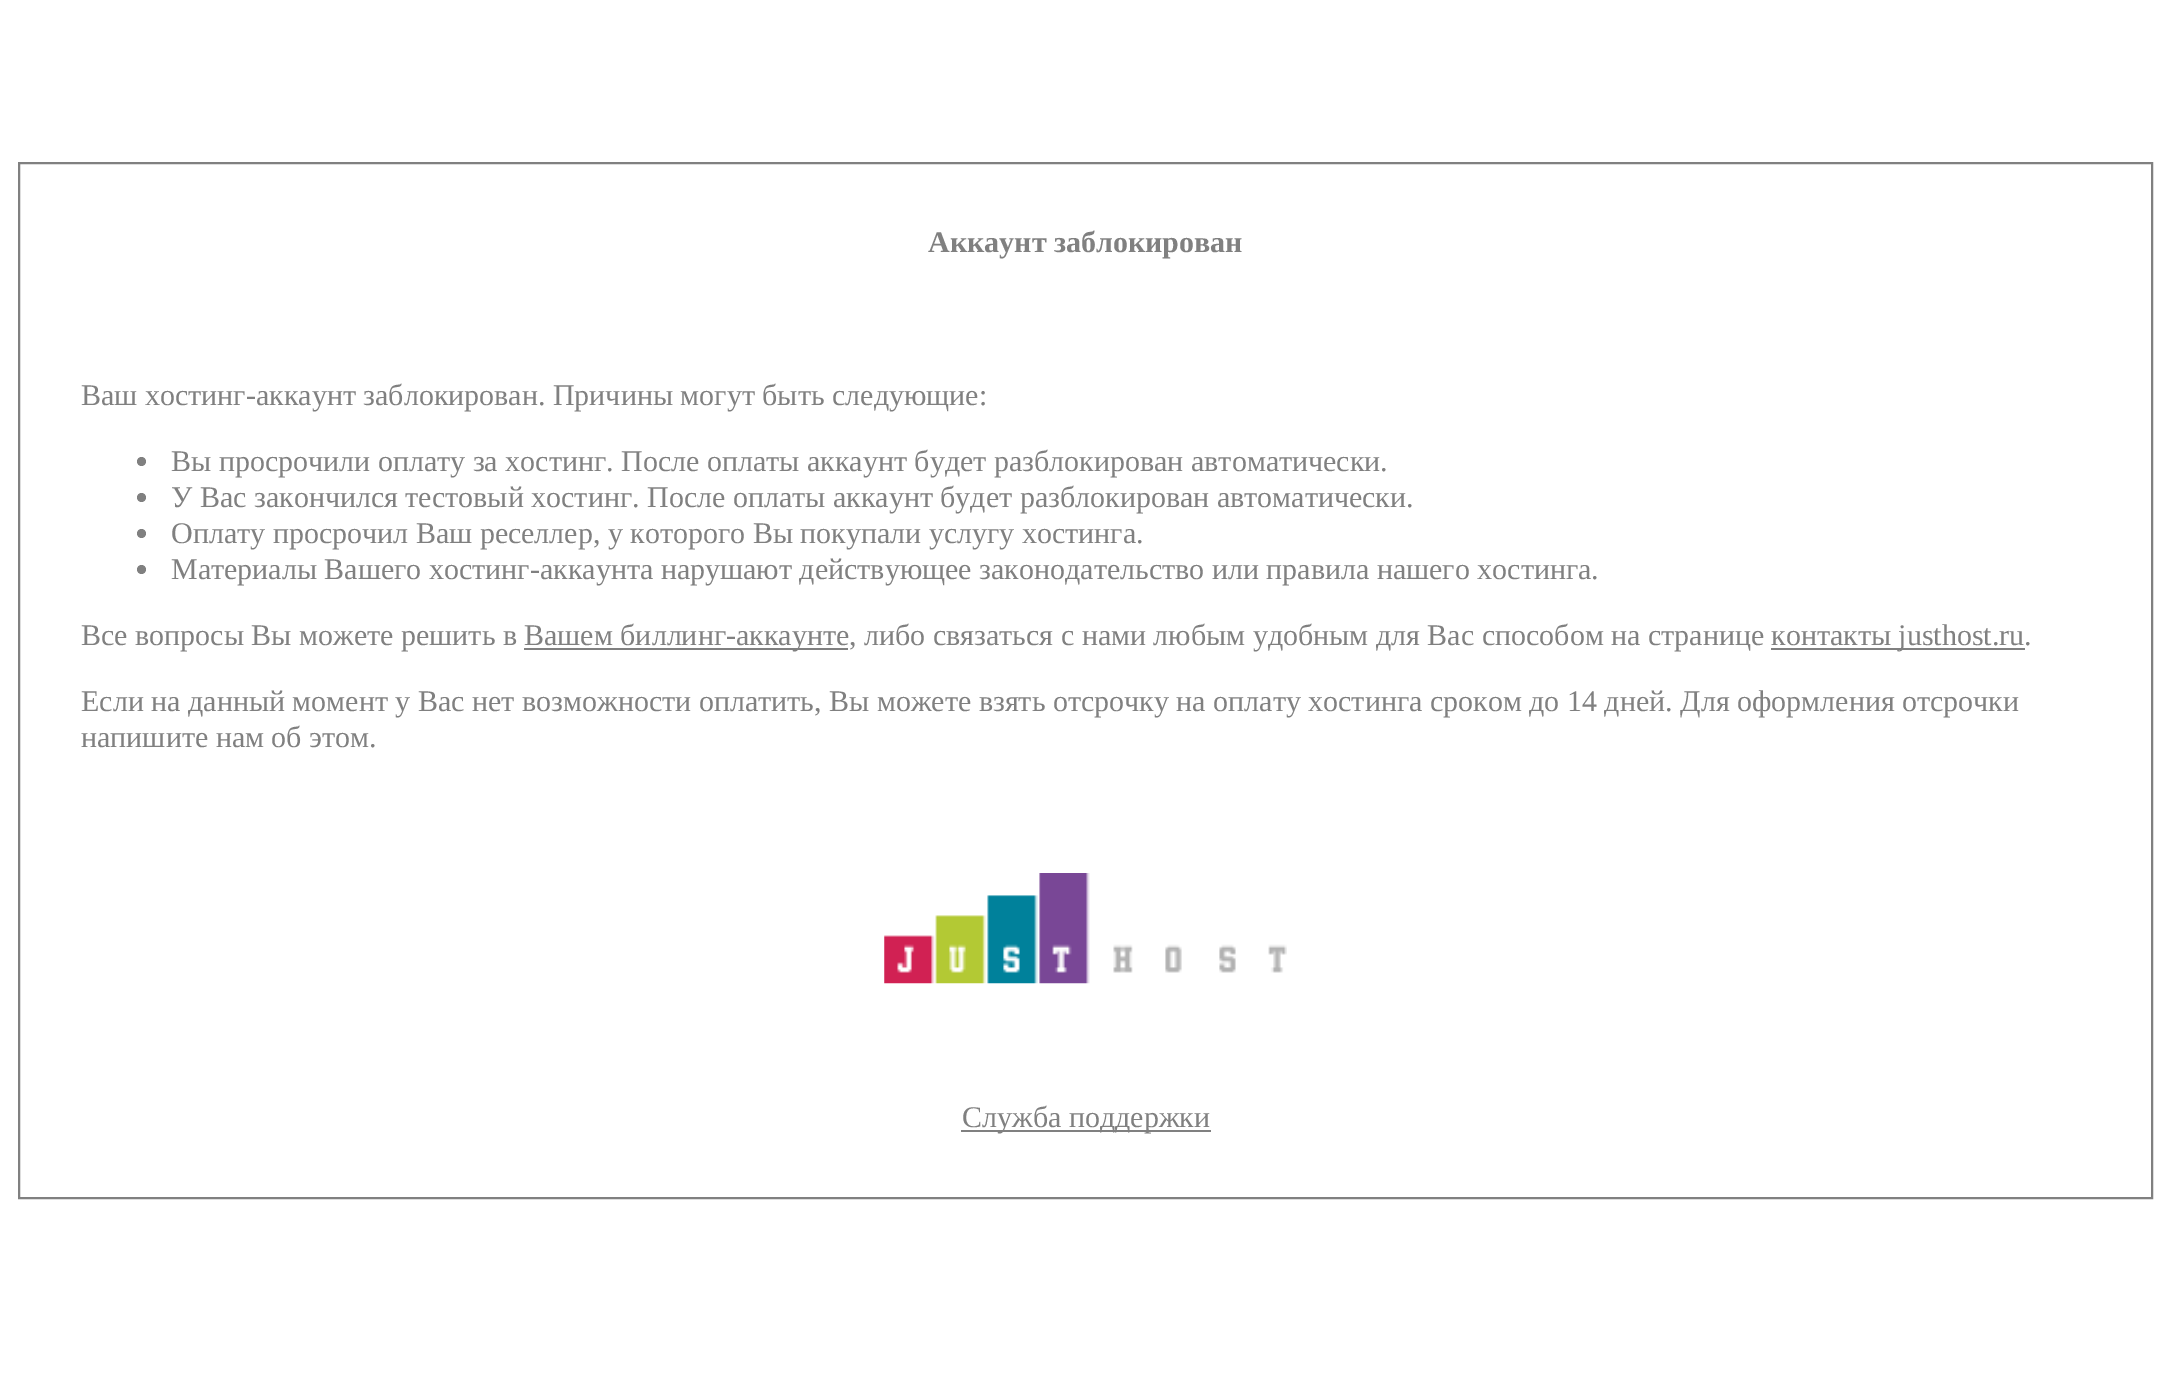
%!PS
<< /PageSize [2171 1387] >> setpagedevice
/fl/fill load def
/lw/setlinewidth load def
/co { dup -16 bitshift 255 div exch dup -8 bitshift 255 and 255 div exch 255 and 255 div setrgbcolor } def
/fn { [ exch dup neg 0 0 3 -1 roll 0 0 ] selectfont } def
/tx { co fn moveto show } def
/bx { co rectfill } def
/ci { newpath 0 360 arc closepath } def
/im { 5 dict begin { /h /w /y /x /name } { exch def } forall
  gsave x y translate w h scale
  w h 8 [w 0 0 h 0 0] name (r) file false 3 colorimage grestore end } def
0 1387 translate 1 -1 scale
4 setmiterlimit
0 0 2171 1387 16#FFFFFF bx
16#808080 co
2 lw
19 163 2133 1035 rectstroke
141.5 461.5 4.5 ci fl
141.5 497.5 4.5 ci fl
141.5 533.5 4.5 ci fl
141.5 569.5 4.5 ci fl
524 648 324 2 16#808080 bx
1771 648 254 2 16#808080 bx
(media/1.raw) 884 873 403 111 im
961 1130 250 2 16#808080 bx
(Аккаунт заблокирован) 928 252 /LiberationSerif-Bold 30 16#808080 tx
(Ваш хостинг-аккаунт заблокирован. Причины могут быть следующие:) 81 405 /LiberationSerif-Regular 30 16#808080 tx
(Вы просрочили оплату за хостинг. После оплаты аккаунт будет разблокирован автоматически.) 171 471 /LiberationSerif-Regular 30 16#808080 tx
(У Вас закончился тестовый хостинг. После оплаты аккаунт будет разблокирован автоматически.) 171 507 /LiberationSerif-Regular 30 16#808080 tx
(Оплату просрочил Ваш реселлер, у которого Вы покупали услугу хостинга.) 171 543 /LiberationSerif-Regular 30 16#808080 tx
(Материалы Вашего хостинг-аккаунта нарушают действующее законодательство или правила нашего хостинга.) 171 579 /LiberationSerif-Regular 30 16#808080 tx
(Все вопросы Вы можете решить в) 81 645 /LiberationSerif-Regular 30 16#808080 tx
(Вашем биллинг-аккаунте, либо связаться с нами любым удобным для Вас способом на странице) 524 645 /LiberationSerif-Regular 30 16#808080 tx
(контакты justhost.ru.) 1771 645 /LiberationSerif-Regular 30 16#808080 tx
(Если на данный момент у Вас нет возможности оплатить, Вы можете взять отсрочку на оплату хостинга сроком до 14 дней. Для оформления отсрочки) 81 711 /LiberationSerif-Regular 30 16#808080 tx
(напишите нам об этом.) 81 747 /LiberationSerif-Regular 30 16#808080 tx
(Служба поддержки) 962 1127 /LiberationSerif-Regular 30 16#808080 tx
showpage
